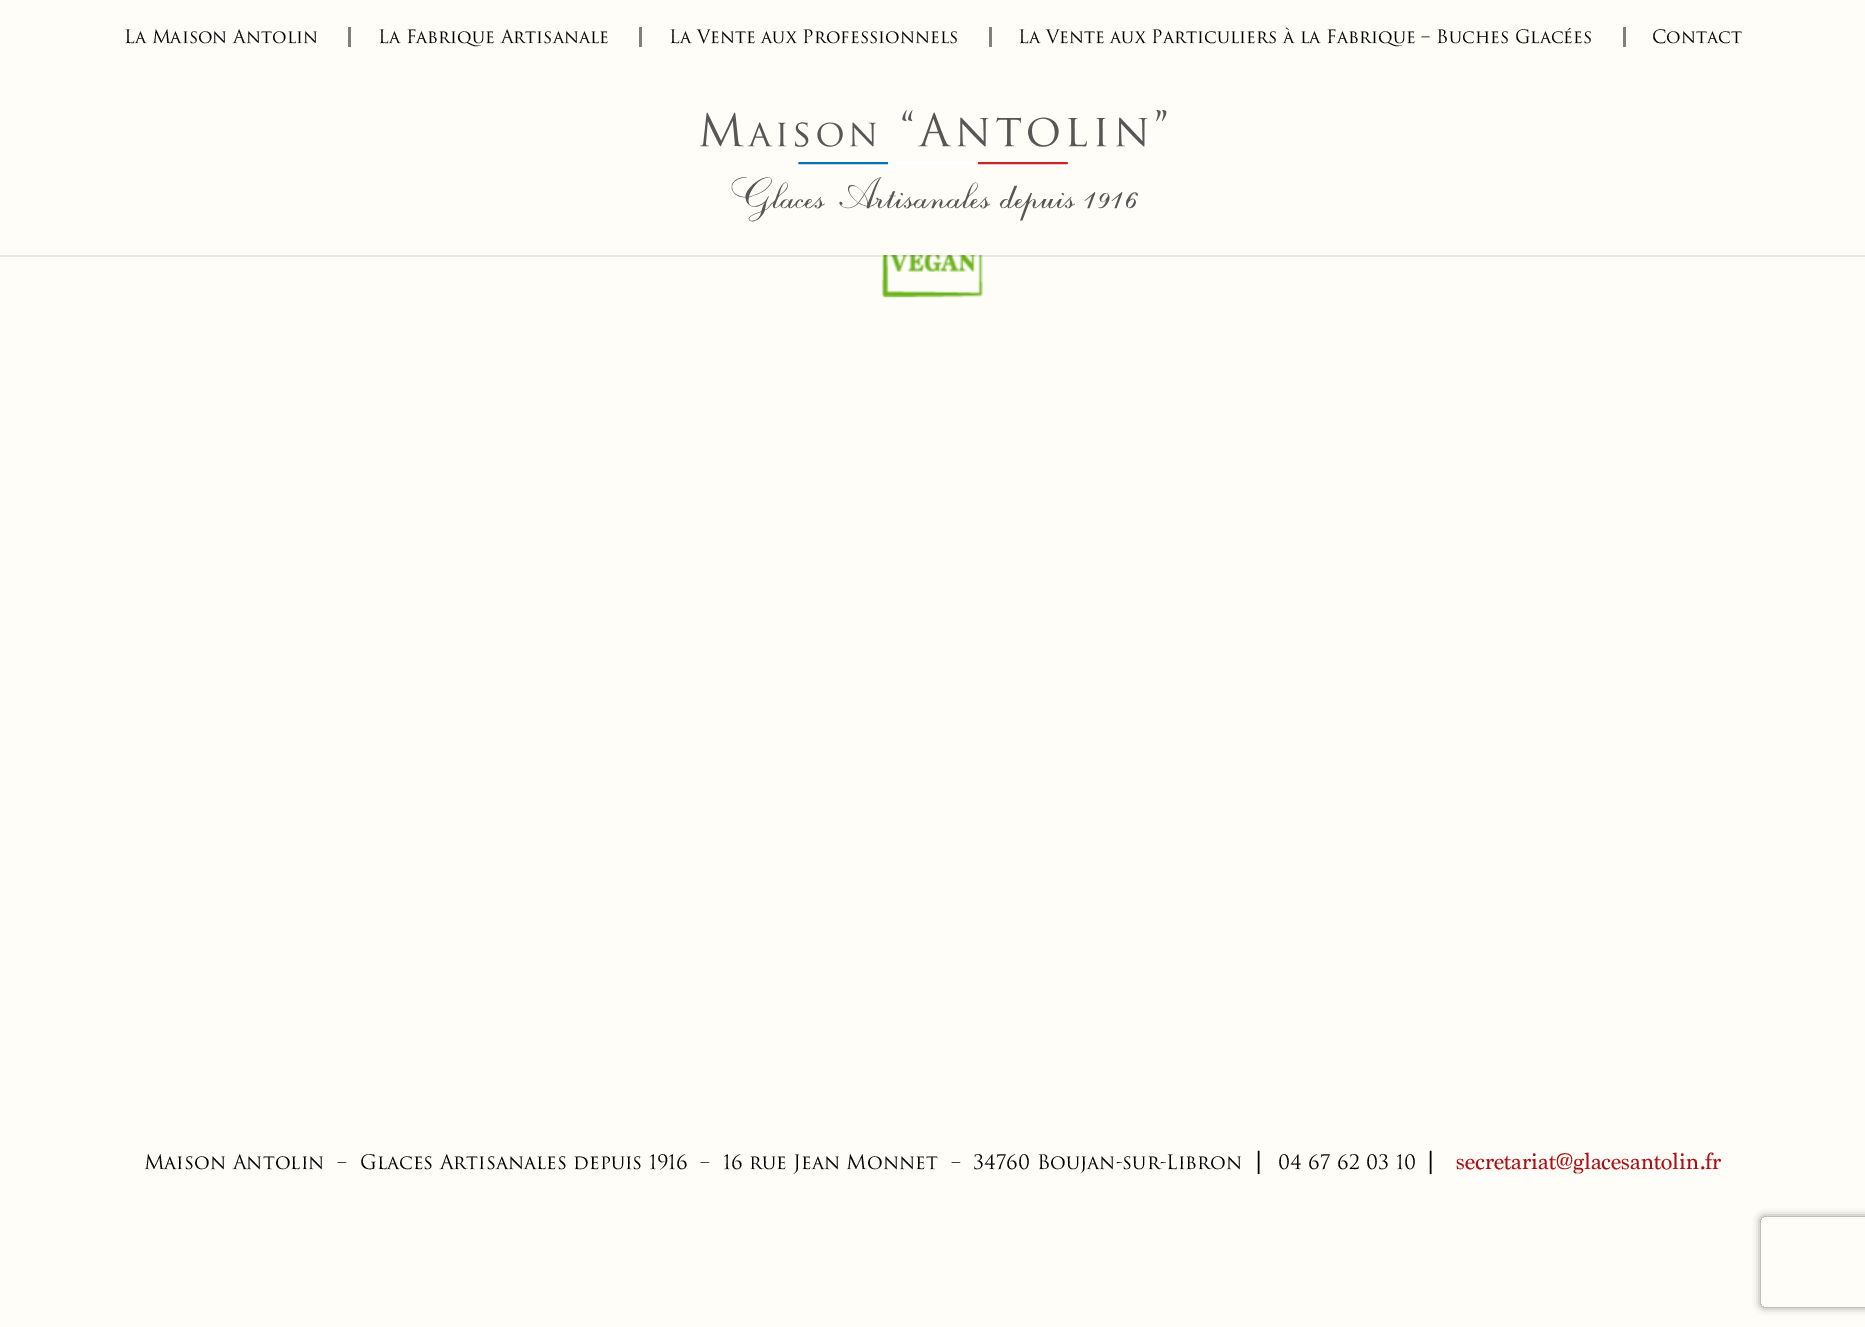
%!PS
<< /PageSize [1865 1327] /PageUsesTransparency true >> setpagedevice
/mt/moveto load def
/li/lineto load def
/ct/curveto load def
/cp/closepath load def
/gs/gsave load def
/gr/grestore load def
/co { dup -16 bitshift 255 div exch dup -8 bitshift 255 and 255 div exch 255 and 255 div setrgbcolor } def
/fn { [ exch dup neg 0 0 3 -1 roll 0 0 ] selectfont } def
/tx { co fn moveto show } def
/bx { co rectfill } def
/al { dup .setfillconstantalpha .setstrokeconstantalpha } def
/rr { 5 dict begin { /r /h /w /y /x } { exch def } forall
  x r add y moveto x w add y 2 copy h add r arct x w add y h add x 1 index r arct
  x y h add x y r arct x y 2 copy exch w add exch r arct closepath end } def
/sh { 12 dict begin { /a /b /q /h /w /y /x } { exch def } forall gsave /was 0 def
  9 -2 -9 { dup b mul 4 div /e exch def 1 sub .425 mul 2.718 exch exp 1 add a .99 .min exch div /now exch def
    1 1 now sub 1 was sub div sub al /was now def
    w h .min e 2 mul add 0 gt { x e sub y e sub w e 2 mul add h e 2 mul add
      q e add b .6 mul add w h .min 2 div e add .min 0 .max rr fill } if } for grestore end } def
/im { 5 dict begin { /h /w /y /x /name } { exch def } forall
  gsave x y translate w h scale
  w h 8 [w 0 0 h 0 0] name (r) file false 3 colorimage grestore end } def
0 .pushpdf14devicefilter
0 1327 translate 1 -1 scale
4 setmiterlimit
0 0 1865 1327 16#FEFDF8 bx
348 27 3 20 16#7F7F7C bx
639 27 3 20 16#7F7F7C bx
989 27 3 20 16#7F7F7C bx
1623 27 3 20 16#7F7F7C bx
(media/2.raw) 881 255 102 43 im
0.08 al
0 255 1865 2 16#000000 bx
1 al
(media/1.raw) 700 110 467 112 im
gs
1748 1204 mt 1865 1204 li 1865 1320 li 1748 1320 li cp 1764 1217 mt 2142 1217 li 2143.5 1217 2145 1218.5 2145 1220 ct 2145 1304 li 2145 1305.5 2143.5 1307 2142 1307 ct 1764 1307 li 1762.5 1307 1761 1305.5 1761 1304 ct 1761 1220 li 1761 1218.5 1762.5 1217 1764 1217 ct cp eoclip newpath
16#808080 co
1761 1217 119 90 3 4 1 sh
gr
(La Maison Antolin) 124 43 /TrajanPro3-Regular 18 16#000000 tx
(La Fabrique Artisanale) 378 43 /TrajanPro3-Regular 18 16#000000 tx
(La Vente aux Professionnels) 669 43 /TrajanPro3-Regular 18 16#000000 tx
(La Vente aux Particuliers à la Fabrique – Buches Glacées) 1018 43 /TrajanPro3-Regular 18 16#000000 tx
(Contact) 1652 43 /TrajanPro3-Regular 18 16#000000 tx
(Maison Antolin  –  Glaces Artisanales depuis 1916  –  16 rue Jean Monnet  –  34760 Boujan-sur-Libron) 144 1169 /TrajanPro3-Regular 19.5 16#000000 tx
(⎜) 1256 1169 /DejaVuSans-Regular 19.5 16#000000 tx
(04 67 62 03 10) 1278 1169 /TrajanPro3-Regular 19.5 16#000000 tx
(⎜) 1428 1169 /DejaVuSans-Regular 19.5 16#000000 tx
(secretariat@glacesantolin.fr) 1456 1169 /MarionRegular-Regular 24 16#AD0F15 tx
.poppdf14devicefilter showpage
